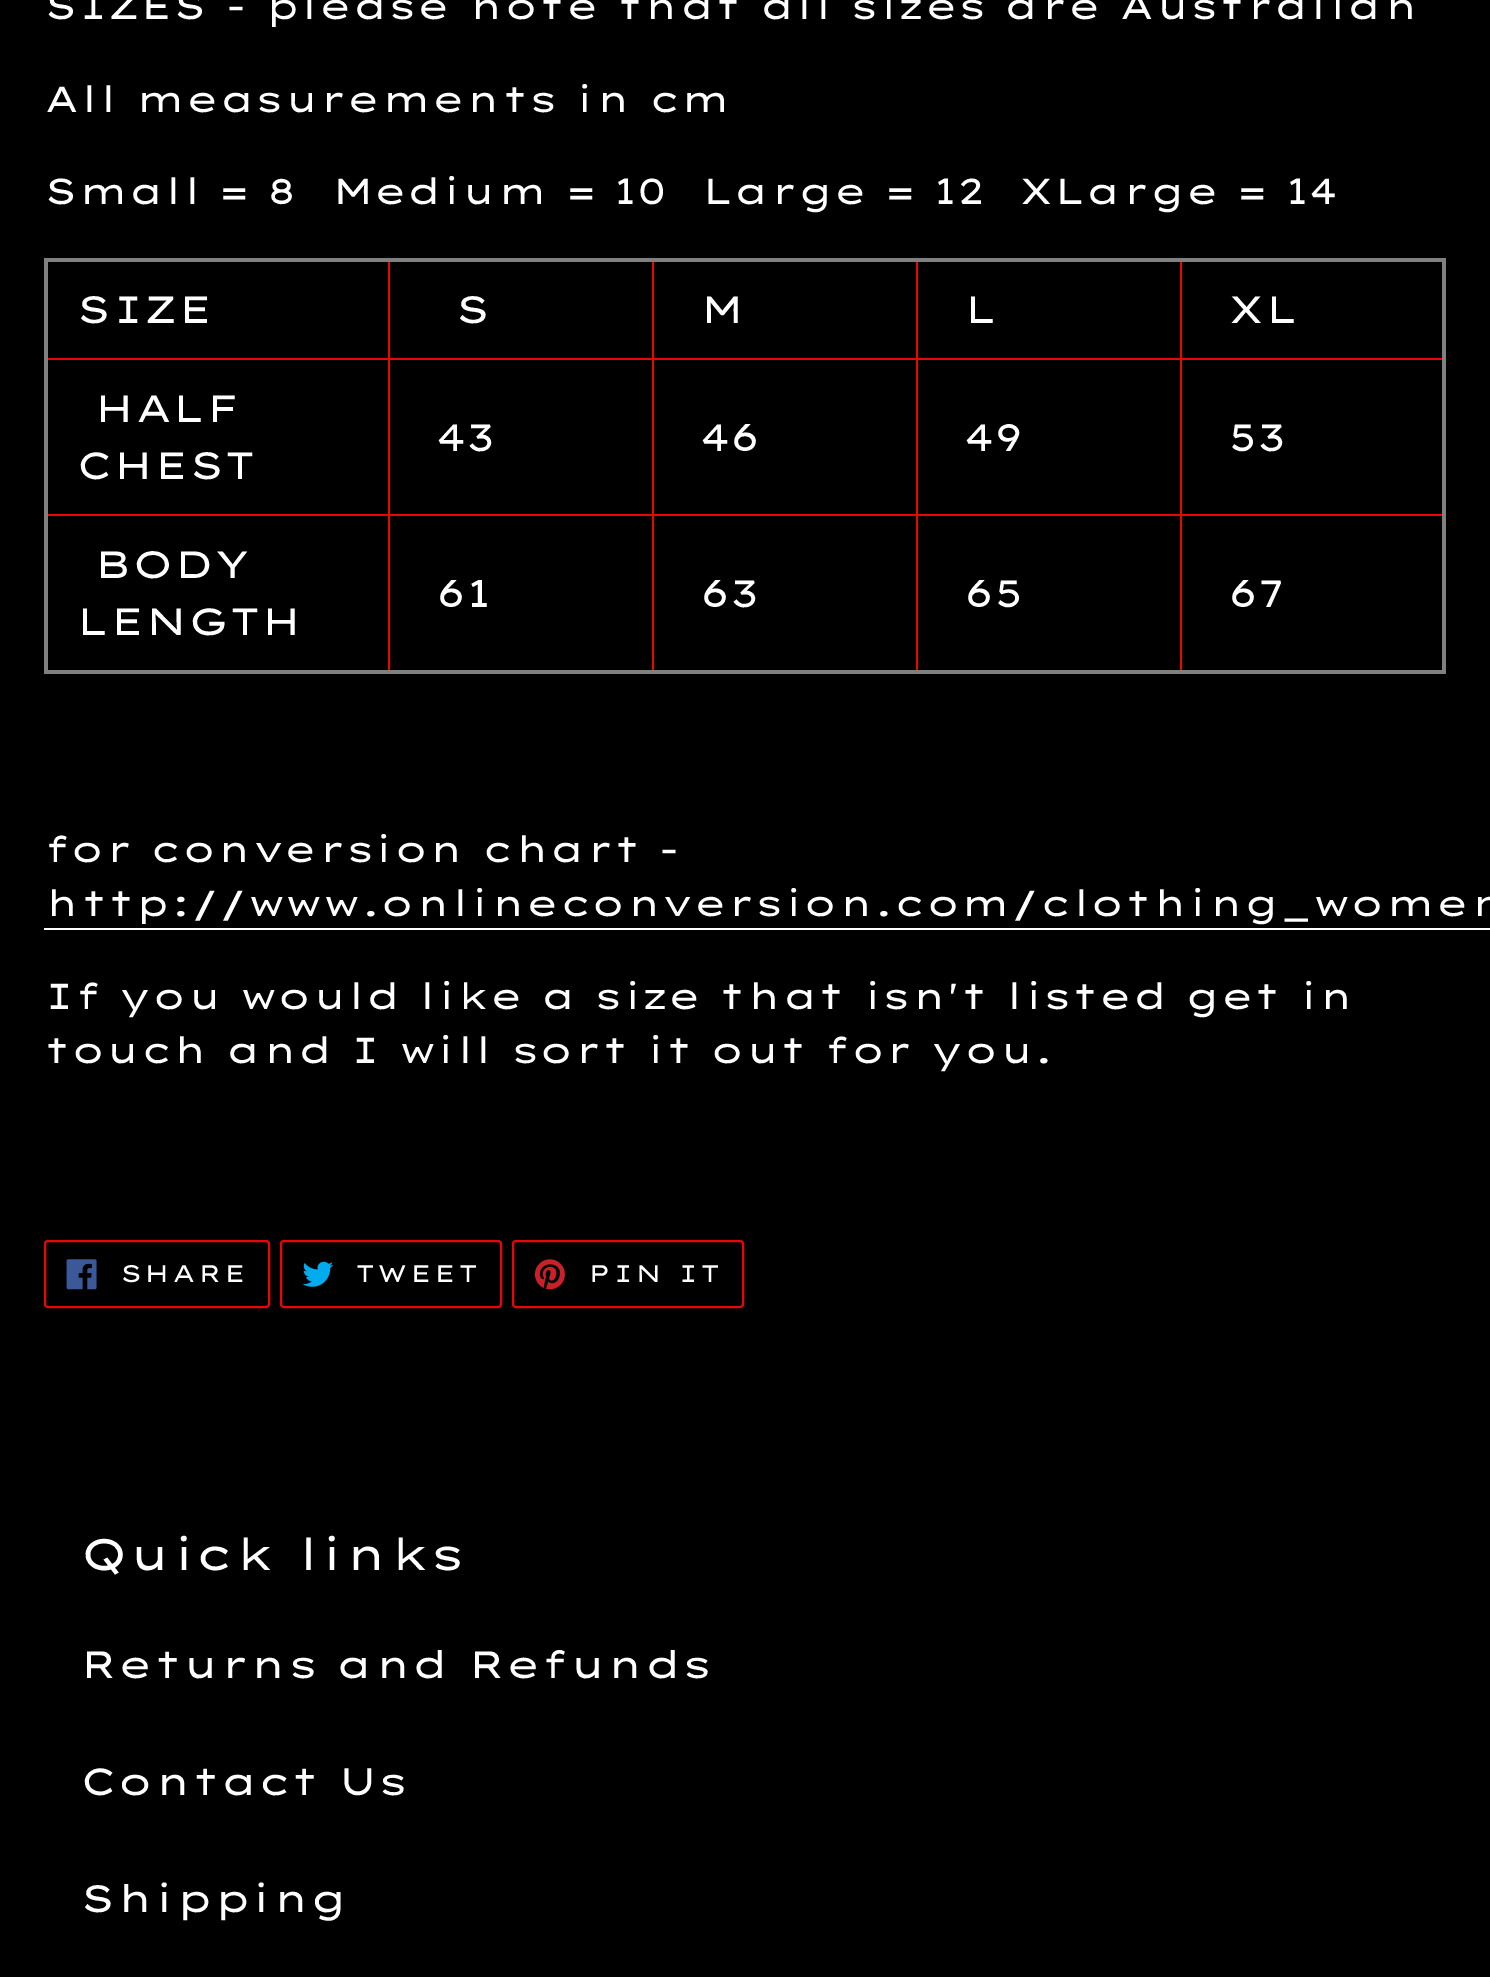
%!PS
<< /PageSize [1490 1977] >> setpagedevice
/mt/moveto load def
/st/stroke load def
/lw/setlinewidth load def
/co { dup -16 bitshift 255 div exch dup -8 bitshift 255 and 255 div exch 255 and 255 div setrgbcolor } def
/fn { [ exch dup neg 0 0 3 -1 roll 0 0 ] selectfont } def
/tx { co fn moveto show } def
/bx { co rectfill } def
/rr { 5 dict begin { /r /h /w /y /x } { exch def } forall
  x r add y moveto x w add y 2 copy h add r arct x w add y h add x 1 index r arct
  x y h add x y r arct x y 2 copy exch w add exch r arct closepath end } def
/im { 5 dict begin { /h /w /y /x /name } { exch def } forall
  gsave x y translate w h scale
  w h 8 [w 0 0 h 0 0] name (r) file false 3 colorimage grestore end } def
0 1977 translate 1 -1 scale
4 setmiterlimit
0 0 1490 1977 16#000000 bx
1180 358 266 2 16#EA0606 bx
1180 514 266 2 16#EA0606 bx
1180 514 2 160 16#EA0606 bx
916 514 266 2 16#EA0606 bx
1180 358 2 158 16#EA0606 bx
916 358 266 2 16#EA0606 bx
916 514 2 160 16#EA0606 bx
652 514 266 2 16#EA0606 bx
916 358 2 158 16#EA0606 bx
652 358 266 2 16#EA0606 bx
652 514 2 160 16#EA0606 bx
388 514 266 2 16#EA0606 bx
652 358 2 158 16#EA0606 bx
388 358 266 2 16#EA0606 bx
388 514 2 160 16#EA0606 bx
46 514 344 2 16#EA0606 bx
388 358 2 158 16#EA0606 bx
46 358 344 2 16#EA0606 bx
388 258 2 102 16#EA0606 bx
652 258 2 102 16#EA0606 bx
916 258 2 102 16#EA0606 bx
1180 258 2 102 16#EA0606 bx
44 258 1402 4 16#808080 bx
1442 258 4 416 16#808080 bx
44 670 1402 4 16#808080 bx
44 258 4 416 16#808080 bx
44 928 1446 2 16#FFFFFF bx
16#EA0606 co
2 lw
45 1241 224 66 3 rr st
(media/1.raw) 66 1259 31 31 im
281 1241 220 66 3 rr st
(media/2.raw) 302 1261 32 26 im
513 1241 230 66 3 rr st
(media/3.raw) 534 1259 31 31 im
(SIZES - please note that all sizes are Australian) 44 19 /LexendZetta-Regular 36 16#FFFFFF tx
(All measurements in cm) 44 112 /LexendZetta-Regular 36 16#FFFFFF tx
(Small = 8  Medium = 10  Large = 12  XLarge = 14) 44 204 /LexendZetta-Regular 36 16#FFFFFF tx
(SIZE) 76 323 /LexendZetta-Regular 38 16#FFFFFF tx
(S) 455 323 /LexendZetta-Regular 38 16#FFFFFF tx
(M) 700 323 /LexendZetta-Regular 38 16#FFFFFF tx
(L) 964 323 /LexendZetta-Regular 38 16#FFFFFF tx
(XL) 1228 323 /LexendZetta-Regular 38 16#FFFFFF tx
(HALF) 94 422 /LexendZetta-Regular 38 16#FFFFFF tx
(CHEST) 76 479 /LexendZetta-Regular 38 16#FFFFFF tx
(43) 436 451 /LexendZetta-Regular 38 16#FFFFFF tx
(46) 700 451 /LexendZetta-Regular 38 16#FFFFFF tx
(49) 964 451 /LexendZetta-Regular 38 16#FFFFFF tx
(53) 1228 451 /LexendZetta-Regular 38 16#FFFFFF tx
(BODY) 94 578 /LexendZetta-Regular 38 16#FFFFFF tx
(LENGTH) 76 635 /LexendZetta-Regular 38 16#FFFFFF tx
(61) 436 607 /LexendZetta-Regular 38 16#FFFFFF tx
(63) 700 607 /LexendZetta-Regular 38 16#FFFFFF tx
(65) 964 607 /LexendZetta-Regular 38 16#FFFFFF tx
(67) 1228 607 /LexendZetta-Regular 38 16#FFFFFF tx
(for conversion chart -) 44 862 /LexendZetta-Regular 36 16#FFFFFF tx
(http://www.onlineconversion.com/clothing_women) 44 916 /LexendZetta-Regular 36 16#FFFFFF tx
(If you would like a size that isn't listed get in) 44 1009 /LexendZetta-Regular 36 16#FFFFFF tx
(touch and I will sort it out for you.) 44 1063 /LexendZetta-Regular 36 16#FFFFFF tx
/LexendZetta-Regular 24 fn
120 1282 mt 2 0 (SHARE) ashow
355 1282 mt 2 0 (TWEET) ashow
588 1282 mt 2 0 (PIN IT) ashow
(Quick links) 80 1570 /LexendZetta-Regular 44 16#FFFFFF tx
(Returns and Refunds) 80 1678 /LexendZetta-Regular 38 16#FFFFFF tx
(Contact Us) 80 1795 /LexendZetta-Regular 38 16#FFFFFF tx
(Shipping) 80 1912 /LexendZetta-Regular 38 16#FFFFFF tx
showpage
